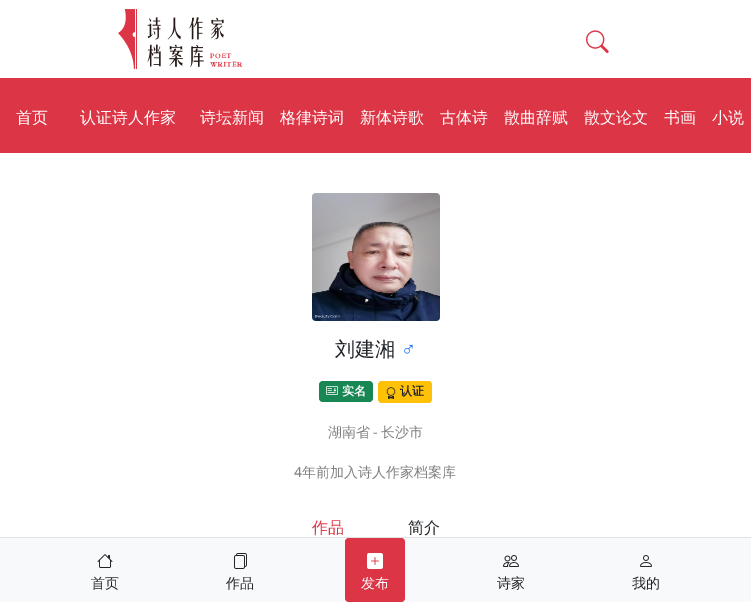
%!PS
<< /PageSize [751 602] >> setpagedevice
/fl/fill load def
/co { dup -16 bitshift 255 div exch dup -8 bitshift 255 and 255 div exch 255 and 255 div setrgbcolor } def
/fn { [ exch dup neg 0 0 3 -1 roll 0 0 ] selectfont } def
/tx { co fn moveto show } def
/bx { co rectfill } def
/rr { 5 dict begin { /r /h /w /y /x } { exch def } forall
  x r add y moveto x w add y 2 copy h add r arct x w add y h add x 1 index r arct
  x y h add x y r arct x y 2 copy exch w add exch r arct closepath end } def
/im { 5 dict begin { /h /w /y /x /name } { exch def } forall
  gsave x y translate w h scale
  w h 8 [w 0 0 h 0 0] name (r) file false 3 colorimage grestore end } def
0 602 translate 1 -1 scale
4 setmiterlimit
0 0 751 602 16#FFFFFF bx
0 78 751 75 16#DC3545 bx
(media/1.raw) 118 9 125 60 im
(media/2.raw) 586 30 23 23 im
(media/3.raw) 312 193 128 128 im
16#198754 co
319 381 54 21 4 rr fl
(media/4.raw) 326 386 12 9 im
16#FFC107 co
378 381 54 22 4 rr fl
(media/5.raw) 386 387 10 12 im
0 538 751 64 16#F8F9FA bx
0 537 751 1 16#DEE2E6 bx
(media/6.raw) 97 554 16 14 im
(media/7.raw) 233 553 14 16 im
16#DC3545 co
345 538 60 64 4 rr fl
(media/8.raw) 367 553 16 16 im
(media/9.raw) 503 555 16 12 im
(media/10.raw) 640 555 12 12 im
(首页) 16 123 /WenQuanYiZenHei-Medium 16 16#FFFFFF tx
(认证诗人作家) 80 123 /WenQuanYiZenHei-Medium 16 16#FFFFFF tx
(诗坛新闻) 200 123 /WenQuanYiZenHei-Medium 16 16#FFFFFF tx
(格律诗词) 280 123 /WenQuanYiZenHei-Medium 16 16#FFFFFF tx
(新体诗歌) 360 123 /WenQuanYiZenHei-Medium 16 16#FFFFFF tx
(古体诗) 440 123 /WenQuanYiZenHei-Medium 16 16#FFFFFF tx
(散曲辞赋) 504 123 /WenQuanYiZenHei-Medium 16 16#FFFFFF tx
(散文论文) 584 123 /WenQuanYiZenHei-Medium 16 16#FFFFFF tx
(书画) 664 123 /WenQuanYiZenHei-Medium 16 16#FFFFFF tx
(小说) 712 123 /WenQuanYiZenHei-Medium 16 16#FFFFFF tx
(刘建湘) 335 356 /WenQuanYiZenHei-Medium 20 16#212529 tx
(♂) 401 356 /LiberationSans-Regular 20 16#0D6EFD tx
(实名) 342 395 /WenQuanYiZenHei-Bold 12 16#FFFFFF tx
(认证) 400 395 /WenQuanYiZenHei-Bold 12 16#212529 tx
(湖南省) 328 437 /WenQuanYiZenHei-Medium 14 16#808080 tx
(-) 373 437 /NotoSans-Regular 14 16#808080 tx
(长沙市) 381 437 /WenQuanYiZenHei-Medium 14 16#808080 tx
(4) 294 477 /NotoSans-Regular 14 16#808080 tx
(年前加入诗人作家档案库) 302 477 /WenQuanYiZenHei-Medium 14 16#808080 tx
(作品) 312 533 /WenQuanYiZenHei-Medium 16 16#DC3545 tx
(简介) 408 533 /WenQuanYiZenHei-Medium 16 16#212529 tx
(首页) 91 588 /WenQuanYiZenHei-Medium 14 16#212529 tx
(作品) 226 588 /WenQuanYiZenHei-Medium 14 16#212529 tx
(发布) 361 588 /WenQuanYiZenHei-Medium 14 16#FFFFFF tx
(诗家) 497 588 /WenQuanYiZenHei-Medium 14 16#212529 tx
(我的) 632 588 /WenQuanYiZenHei-Medium 14 16#212529 tx
showpage
